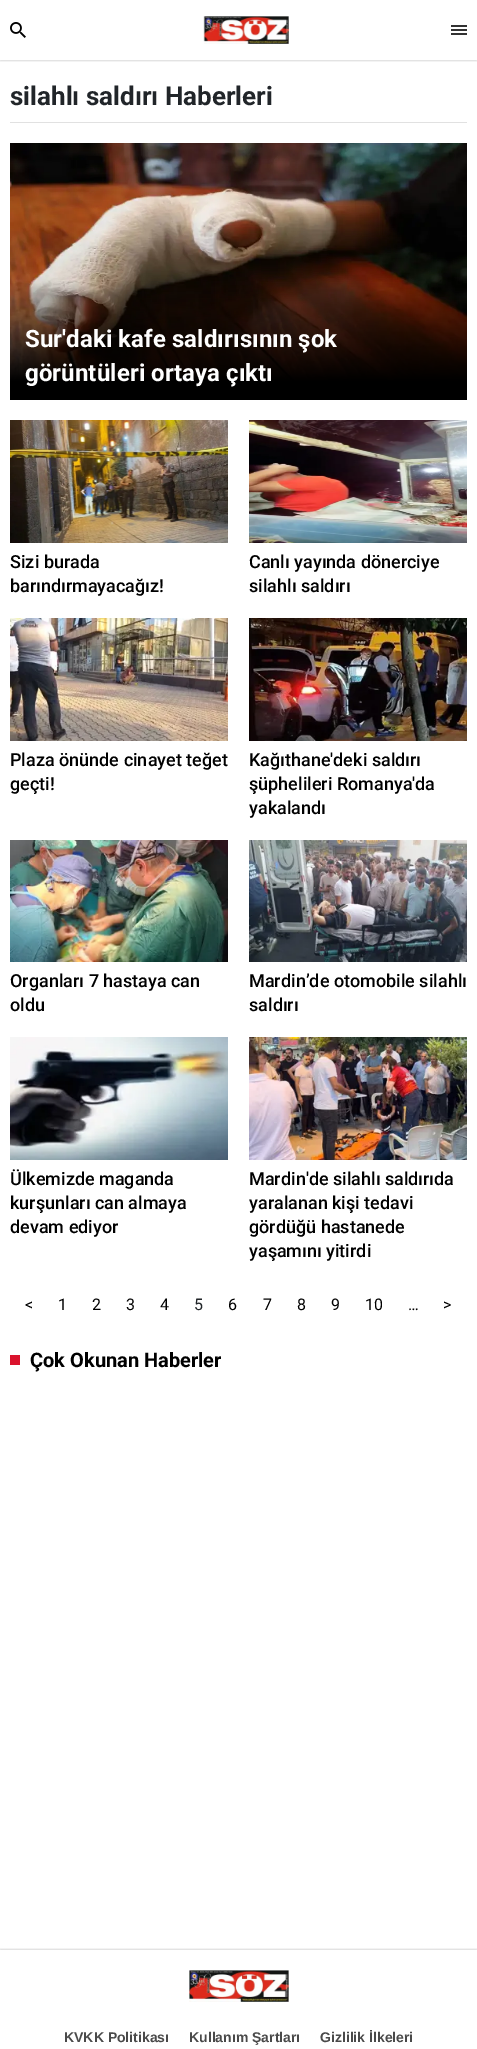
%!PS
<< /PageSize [477 2049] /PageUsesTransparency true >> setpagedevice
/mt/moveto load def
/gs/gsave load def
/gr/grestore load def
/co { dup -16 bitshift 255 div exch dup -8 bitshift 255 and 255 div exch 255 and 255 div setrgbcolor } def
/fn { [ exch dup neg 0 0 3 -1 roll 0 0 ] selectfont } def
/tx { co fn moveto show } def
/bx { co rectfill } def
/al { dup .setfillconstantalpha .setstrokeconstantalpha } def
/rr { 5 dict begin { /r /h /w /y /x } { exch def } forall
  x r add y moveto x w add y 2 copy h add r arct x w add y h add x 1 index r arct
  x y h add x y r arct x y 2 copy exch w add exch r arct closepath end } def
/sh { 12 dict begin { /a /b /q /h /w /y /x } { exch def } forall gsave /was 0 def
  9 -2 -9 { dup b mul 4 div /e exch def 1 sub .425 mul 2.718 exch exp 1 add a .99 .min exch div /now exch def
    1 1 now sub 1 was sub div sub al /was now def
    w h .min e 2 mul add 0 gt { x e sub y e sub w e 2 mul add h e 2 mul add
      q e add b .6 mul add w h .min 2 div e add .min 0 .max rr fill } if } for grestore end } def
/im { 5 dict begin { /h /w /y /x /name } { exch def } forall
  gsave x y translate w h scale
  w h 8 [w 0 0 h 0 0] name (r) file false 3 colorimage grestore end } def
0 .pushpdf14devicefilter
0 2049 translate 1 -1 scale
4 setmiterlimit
0 0 477 2049 16#FFFFFF bx
gs
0 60 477 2 rectclip
16#000000 co
0 1 477 60 0 1 .15 sh
gr
(media/1.raw) 10 22 16 16 im
(media/2.raw) 203 16 86 28 im
(media/3.raw) 451 25 16 10 im
10 122 457 1 16#E1E1E1 bx
(media/4.raw) 10 143 457 257 im
(media/5.raw) 10 420 218 123 im
(media/6.raw) 249 420 218 123 im
(media/7.raw) 10 618 218 123 im
(media/8.raw) 249 618 218 123 im
(media/9.raw) 10 840 218 122 im
(media/10.raw) 249 840 218 122 im
(media/11.raw) 10 1037 218 123 im
(media/12.raw) 249 1037 218 123 im
10 1355 10 10 16#DA132D bx
gs
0 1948 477 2 rectclip
16#000000 co
0 1949 477 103 0 1 .15 sh
gr
(media/13.raw) 189 1970 100 32 im
(silahlı saldırı Haberleri) 10 105 /Roboto-Bold 26 16#212529 tx
/Roboto-Bold 24 fn
16#FFFFFF co
25 347 mt .1 0 (Sur'daki kafe saldırısının şok) ashow
25 381 mt .1 0 (görüntüleri ortaya çıktı) ashow
(Sizi burada) 10 568 /Roboto-Medium 18 16#000000 tx
(barındırmayacağız!) 10 592 /Roboto-Medium 18 16#000000 tx
(Canlı yayında dönerciye) 249 568 /Roboto-Medium 18 16#000000 tx
(silahlı saldırı) 249 592 /Roboto-Medium 18 16#000000 tx
(Plaza önünde cinayet teğet) 10 766 /Roboto-Medium 18 16#000000 tx
(geçti!) 10 790 /Roboto-Medium 18 16#000000 tx
(Kağıthane'deki saldırı) 249 766 /Roboto-Medium 18 16#000000 tx
(şüphelileri Romanya'da) 249 790 /Roboto-Medium 18 16#000000 tx
(yakalandı) 249 814 /Roboto-Medium 18 16#000000 tx
(Organları 7 hastaya can) 10 987 /Roboto-Medium 18 16#000000 tx
(oldu) 10 1011 /Roboto-Medium 18 16#000000 tx
(Mardin’de otomobile silahlı) 249 987 /Roboto-Medium 18 16#000000 tx
(saldırı) 249 1011 /Roboto-Medium 18 16#000000 tx
(Ülkemizde maganda) 10 1185 /Roboto-Medium 18 16#000000 tx
(kurşunları can almaya) 10 1209 /Roboto-Medium 18 16#000000 tx
(devam ediyor) 10 1233 /Roboto-Medium 18 16#000000 tx
(Mardin'de silahlı saldırıda) 249 1185 /Roboto-Medium 18 16#000000 tx
(yaralanan kişi tedavi) 249 1209 /Roboto-Medium 18 16#000000 tx
(gördüğü hastanede) 249 1233 /Roboto-Medium 18 16#000000 tx
(yaşamını yitirdi) 249 1257 /Roboto-Medium 18 16#000000 tx
(<) 25 1310 /Roboto-Regular 16 16#000000 tx
(1) 58 1310 /Roboto-Regular 16 16#000000 tx
(2) 92 1310 /Roboto-Regular 16 16#000000 tx
(3) 126 1310 /Roboto-Regular 16 16#000000 tx
(4) 160 1310 /Roboto-Regular 16 16#000000 tx
(5) 194 1310 /Roboto-Regular 16 16#212529 tx
(6) 228 1310 /Roboto-Regular 16 16#000000 tx
(7) 263 1310 /Roboto-Regular 16 16#000000 tx
(8) 297 1310 /Roboto-Regular 16 16#000000 tx
(9) 331 1310 /Roboto-Regular 16 16#000000 tx
(10) 365 1310 /Roboto-Regular 16 16#000000 tx
(>) 443 1310 /Roboto-Regular 16 16#000000 tx
(…) 408 1310 /Roboto-Regular 16 16#000000 tx
(Çok Okunan Haberler) 30 1367 /Roboto-Bold 20 16#000000 tx
(KVKK Politikası) 64 2042 /LiberationSans-Bold 14 16#4A4A4A tx
(Kullanım Şartları) 189 2042 /LiberationSans-Bold 14 16#4A4A4A tx
(Gizlilik İlkeleri) 320 2042 /LiberationSans-Bold 14 16#4A4A4A tx
.poppdf14devicefilter showpage
